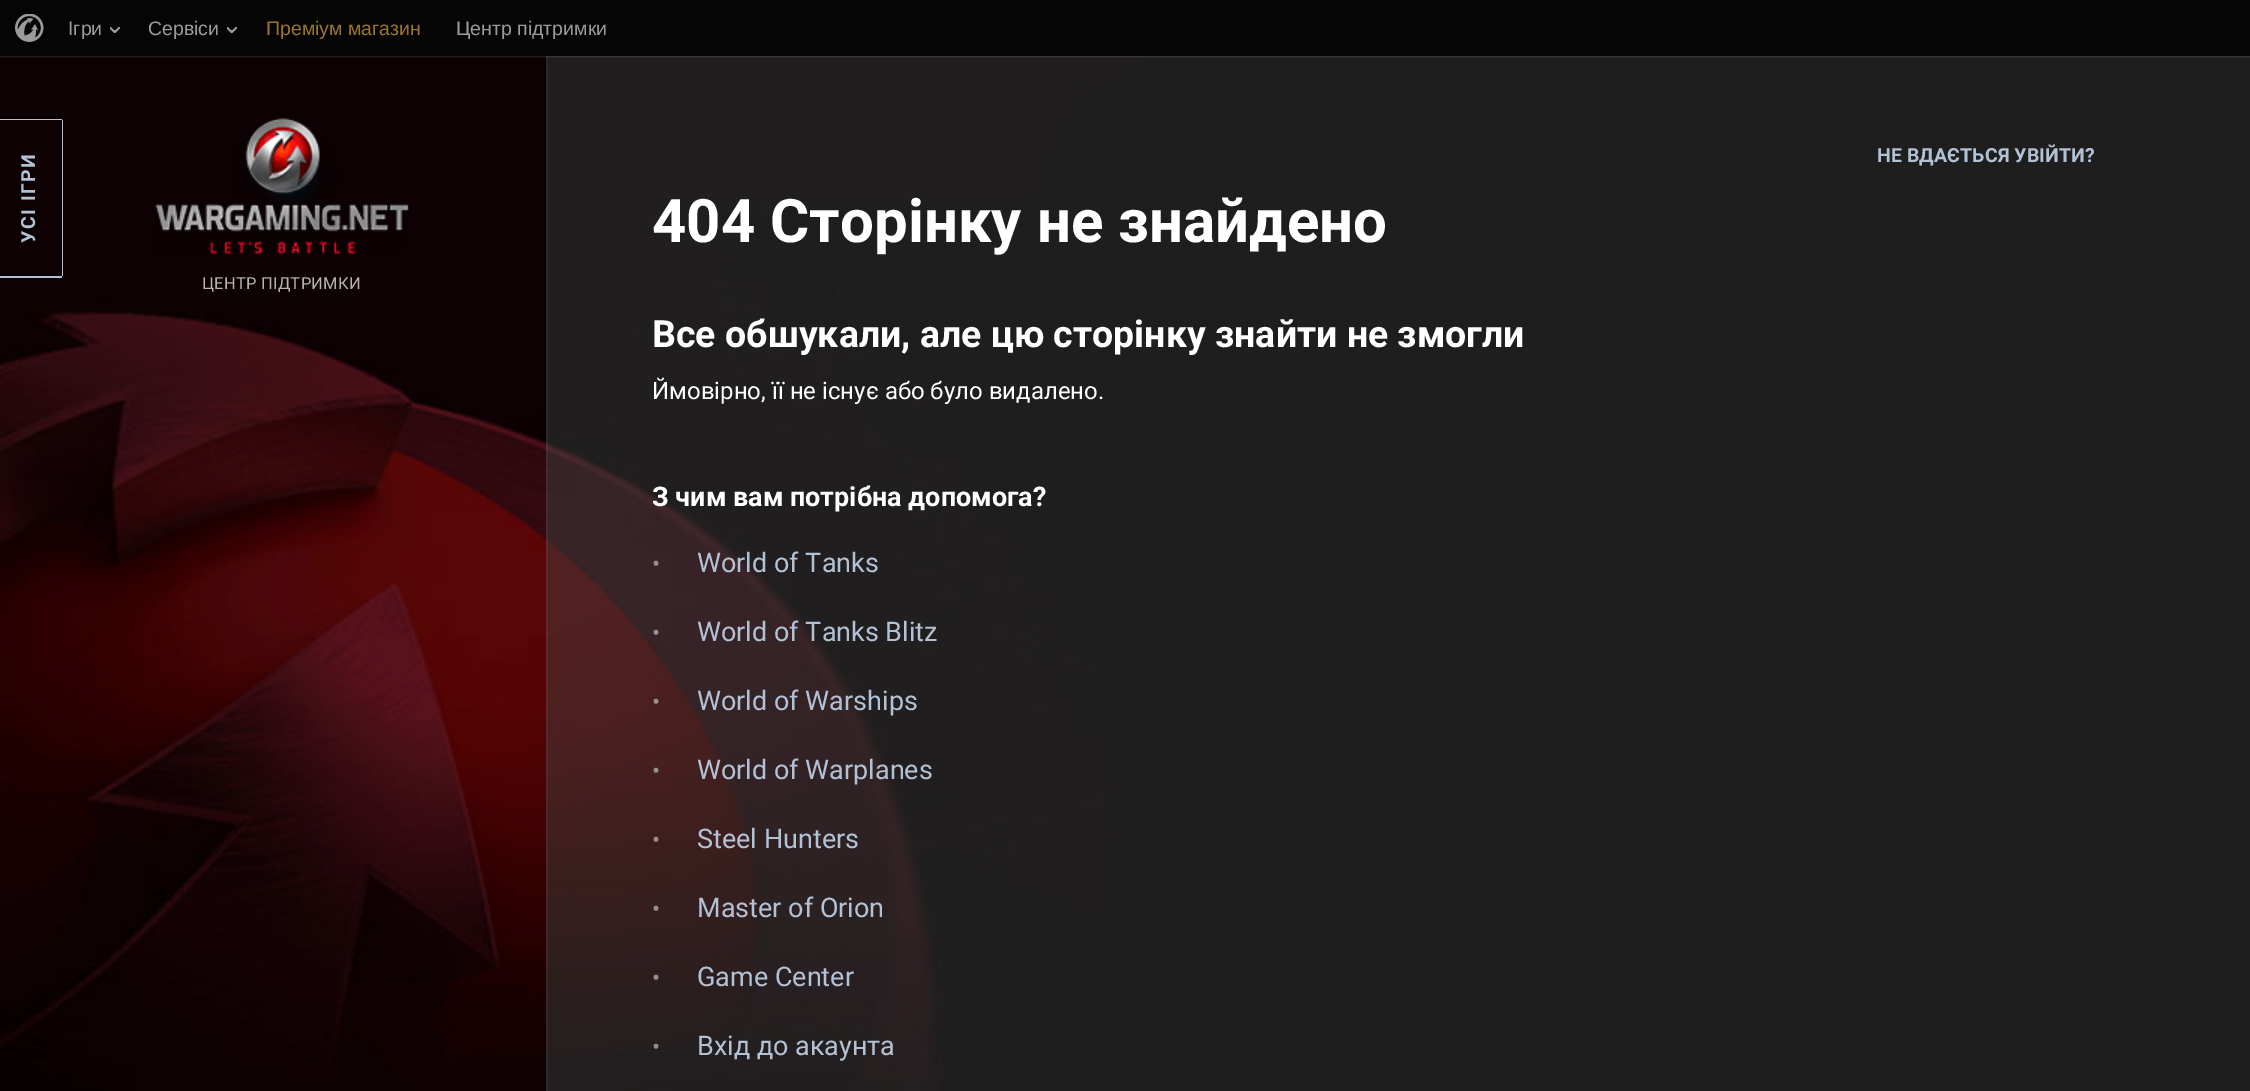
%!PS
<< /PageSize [2250 1091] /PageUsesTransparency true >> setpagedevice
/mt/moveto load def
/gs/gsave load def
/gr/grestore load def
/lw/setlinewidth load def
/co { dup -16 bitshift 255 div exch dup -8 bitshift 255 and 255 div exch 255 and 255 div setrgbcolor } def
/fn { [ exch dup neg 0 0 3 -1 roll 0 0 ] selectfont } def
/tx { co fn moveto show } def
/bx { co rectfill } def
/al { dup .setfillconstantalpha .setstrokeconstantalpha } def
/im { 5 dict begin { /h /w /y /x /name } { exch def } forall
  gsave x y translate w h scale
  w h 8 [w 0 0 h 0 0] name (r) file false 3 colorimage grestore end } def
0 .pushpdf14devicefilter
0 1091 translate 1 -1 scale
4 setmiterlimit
0 0 2250 1091 16#000000 bx
(media/1.raw) 0 56 1333 1035 im
0.2 al
0 56 546 1035 16#240001 bx
0.5 al
546 56 1704 1035 16#3B3B3B bx
0.05 al
546 56 2 1035 16#FFFFFF bx
0.1 al
2 lw
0 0 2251 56 rectstroke
1 al
0 0 2250 56 16#050505 bx
(media/2.raw) 15 14 29 28 im
(media/3.raw) 110 27 10 6 im
(media/3.raw) 227 27 10 6 im
0 119 62 1 16#B3C1D5 bx
62 120 1 156 16#B3C1D5 bx
0 276 62 2 16#B3C1D5 bx
(media/4.raw) 155 118 254 136 im
(Ігри) 68 35 /LiberationSans-Regular 19.5 16#9B9B9B tx
(Сервіси) 148 35 /LiberationSans-Regular 19.5 16#9B9B9B tx
(Преміум магазин) 266 35 /LiberationSans-Regular 19.5 16#9B7430 tx
(Центр підтримки) 456 35 /LiberationSans-Regular 19.5 16#9B9B9B tx
/Roboto-Bold 19.5 fn
16#B3C1D5 co
gs 35 243 translate -90 rotate 0 0 mt 1.5 0 (УСІ ІГРИ) ashow gr
/Roboto-Regular 16.5 fn
16#B6B3B3 co
202 289 mt .25 0 (ЦЕНТР ПІДТРИМКИ) ashow
/Roboto-Bold 19.5 fn
16#B3C1D5 co
1877 162 mt .1 0 (НЕ ВДАЄТЬСЯ УВІЙТИ?) ashow
(404 Сторінку не знайдено) 652 242 /Roboto-Bold 60 16#FFFFFF tx
(Все обшукали, але цю сторінку знайти не змогли) 652 347 /Roboto-Bold 37.5 16#FFFFFF tx
(Ймовірно, її не існує або було видалено.) 652 399 /Roboto-Regular 24 16#FFFFFF tx
(З чим вам потрібна допомога?) 652 506 /Roboto-Bold 27 16#FFFFFF tx
(•) 652 572 /Roboto-Regular 24 16#969090 tx
(World of Tanks) 697 572 /Roboto-Regular 27 16#B3C1D5 tx
(•) 652 641 /Roboto-Regular 24 16#969090 tx
(World of Tanks Blitz) 697 641 /Roboto-Regular 27 16#B3C1D5 tx
(•) 652 710 /Roboto-Regular 24 16#969090 tx
(World of Warships) 697 710 /Roboto-Regular 27 16#B3C1D5 tx
(•) 652 779 /Roboto-Regular 24 16#969090 tx
(World of Warplanes) 697 779 /Roboto-Regular 27 16#B3C1D5 tx
(•) 652 848 /Roboto-Regular 24 16#969090 tx
(Steel Hunters) 697 848 /Roboto-Regular 27 16#B3C1D5 tx
(•) 652 917 /Roboto-Regular 24 16#969090 tx
(Master of Orion) 697 917 /Roboto-Regular 27 16#B3C1D5 tx
(•) 652 986 /Roboto-Regular 24 16#969090 tx
(Game Center) 697 986 /Roboto-Regular 27 16#B3C1D5 tx
(•) 652 1055 /Roboto-Regular 24 16#908E8E tx
(Вхід до акаунта) 697 1055 /Roboto-Regular 27 16#B3C1D5 tx
.poppdf14devicefilter showpage
